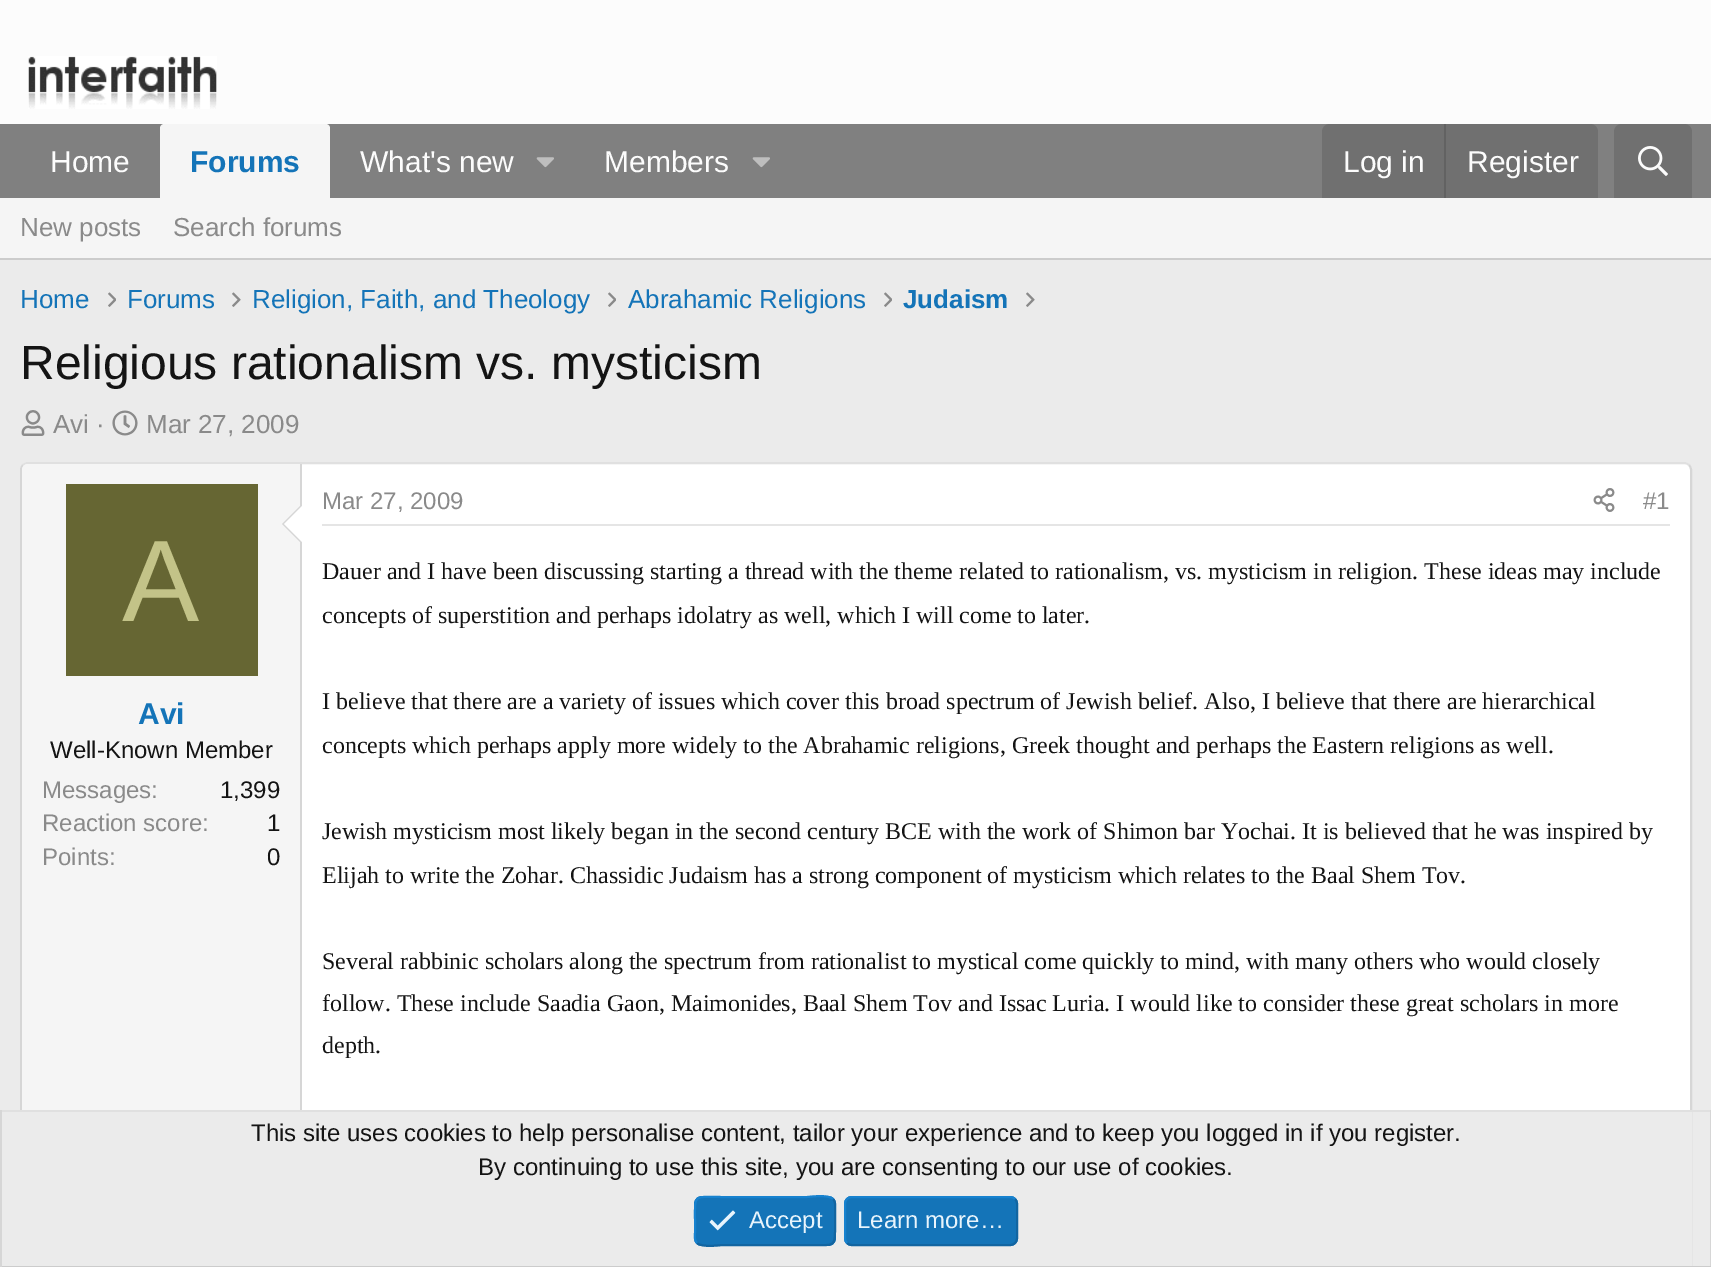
%!PS
<< /PageSize [1711 1267] >> setpagedevice
/mt/moveto load def
/li/lineto load def
/ct/curveto load def
/cp/closepath load def
/fl/fill load def
/st/stroke load def
/lw/setlinewidth load def
/co { dup -16 bitshift 255 div exch dup -8 bitshift 255 and 255 div exch 255 and 255 div setrgbcolor } def
/fn { [ exch dup neg 0 0 3 -1 roll 0 0 ] selectfont } def
/tx { co fn moveto show } def
/bx { co rectfill } def
/rr { 5 dict begin { /r /h /w /y /x } { exch def } forall
  x r add y moveto x w add y 2 copy h add r arct x w add y h add x 1 index r arct
  x y h add x y r arct x y 2 copy exch w add exch r arct closepath end } def
/im { 5 dict begin { /h /w /y /x /name } { exch def } forall
  gsave x y translate w h scale
  w h 8 [w 0 0 h 0 0] name (r) file false 3 colorimage grestore end } def
0 1267 translate 1 -1 scale
4 setmiterlimit
0 0 1711 1267 16#EBEBEB bx
0 0 1711 124 16#FCFCFC bx
(media/1.raw) 28 56 189 53 im
0 124 1711 74 16#808080 bx
16#F5F5F5 co
164 124 mt 326 124 li 328 124 330 126 330 128 ct 330 198 li 160 198 li 160 128 li 160 126 162 124 164 124 ct cp fl
(media/2.raw) 536 157 18 11 im
(media/2.raw) 752 157 18 11 im
16#707070 co
1330 124 mt 1590 124 li 1594.5 124 1598 127.5 1598 132 ct 1598 198 li 1322 198 li 1322 132 li 1322 127.5 1325.5 124 1330 124 ct cp fl
1444 124 2 74 16#626262 bx
16#707070 co
1622 124 mt 1684 124 li 1688.5 124 1692 127.5 1692 132 ct 1692 198 li 1614 198 li 1614 132 li 1614 127.5 1617.5 124 1622 124 ct cp fl
(media/3.raw) 1638 146 30 30 im
0 198 1711 60 16#F5F5F5 bx
0 258 1711 2 16#CCCCCC bx
(media/4.raw) 108 292 8 15 im
(media/5.raw) 232 292 9 15 im
(media/4.raw) 608 292 8 15 im
(media/4.raw) 884 292 8 15 im
(media/5.raw) 1026 292 9 15 im
(media/6.raw) 21 410 24 26 im
(media/7.raw) 112 410 26 26 im
16#FFFFFF co
20 462 1672 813 8 rr fl
16#E0E0E0 co
2 lw
23 465 mt 24.5 463.5 26 463 28 463 ct 1684 463 li 1686 463 1687.5 463.5 1689 465 ct st
16#D6D6D6 co
1689 465 mt 1690.5 466.5 1691 468 1691 470 ct 1691 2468 li 1691 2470 1690.5 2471.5 1689 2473 ct st
23 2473 mt 21.5 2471.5 21 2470 21 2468 ct 21 470 li 21 468 21.5 466.5 23 465 ct st
16#F5F5F5 co
28 464 mt 302 464 li 302 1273 li 28 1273 li 24.5 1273 22 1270.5 22 1267 ct 22 470 li 22 466.5 24.5 464 28 464 ct cp fl
300 464 2 646 16#D6D6D6 bx
302 504 mt 302 544 li 282 524 li cp fl
16#FFFFFF co
302 506 mt 302 542 li 284 524 li cp fl
66 484 192 192 16#666633 bx
322 524 1348 2 16#E5E5E5 bx
(media/8.raw) 1593 488 22 24 im
20 1112 1672 154 16#EBEBEB bx
0 1110 1711 2 16#E0E0E0 bx
1710 1110 1 157 16#D6D6D6 bx
0 1266 1711 1 16#CCCCCC bx
0 1110 2 157 16#D6D6D6 bx
16#1474B8 co
694 1196 142 50 8 rr fl
16#1265A1 co
833 1199 mt 836 1202 835 1206 835 1209.5 ct 835 1221 li 835 1249 837.5 1245 807 1245 ct 723 1245 li 721 1245 702 1248 697 1243 ct st
16#1782CF co
697 1243 mt 694 1240 695 1236 695 1232.5 ct 695 1221 li 695 1193 692.5 1197 723 1197 ct 807 1197 li 809 1197 828 1194 833 1199 ct st
(media/9.raw) 709 1210 27 21 im
16#1474B8 co
844 1196 174 50 8 rr fl
16#1265A1 co
1015 1199 mt 1016.5 1200.5 1017 1202 1017 1204 ct 1017 1238 li 1017 1240 1016.5 1241.5 1015 1243 ct 1013.5 1244.5 1012 1245 1010 1245 ct 852 1245 li 850 1245 848.5 1244.5 847 1243 ct st
16#1782CF co
847 1243 mt 845.5 1241.5 845 1240 845 1238 ct 845 1204 li 845 1202 845.5 1200.5 847 1199 ct 848.5 1197.5 850 1197 852 1197 ct 1010 1197 li 1012 1197 1013.5 1197.5 1015 1199 ct st
(Home) 50 172 /LiberationSans-Regular 30 16#FCFCFC tx
(Forums) 190 172 /LiberationSans-Bold 30 16#1474B8 tx
(What's new) 360 172 /LiberationSans-Regular 30 16#FCFCFC tx
(Members) 604 172 /LiberationSans-Regular 30 16#FCFCFC tx
(Log in) 1343 172 /LiberationSans-Regular 30 16#FCFCFC tx
(Register) 1467 172 /LiberationSans-Regular 30 16#FCFCFC tx
(New posts) 20 236 /LiberationSans-Regular 26 16#8A8A8A tx
(Search forums) 173 236 /LiberationSans-Regular 26 16#8A8A8A tx
(Home) 20 308 /LiberationSans-Regular 26 16#1474B8 tx
(Forums) 127 308 /LiberationSans-Regular 26 16#1474B8 tx
(Religion, Faith, and Theology) 252 308 /LiberationSans-Regular 26 16#1474B8 tx
(Abrahamic Religions) 628 308 /LiberationSans-Regular 26 16#1474B8 tx
(Judaism) 903 308 /LiberationSans-Bold 26 16#1474B8 tx
(Religious rationalism vs. mysticism) 20 379 /LiberationSans-Regular 48 16#141414 tx
(Avi ·) 53 433 /LiberationSans-Regular 26 16#8A8A8A tx
(Mar 27, 2009) 146 433 /LiberationSans-Regular 26 16#8A8A8A tx
(A) 122 621 /LiberationSans-Regular 116 16#C3C388 tx
(Avi) 138 724 /LiberationSans-Bold 30 16#1474B8 tx
(Well-Known Member) 50 758 /LiberationSans-Regular 24 16#141414 tx
(Messages:) 42 798 /LiberationSans-Regular 24 16#8A8A8A tx
(1,399) 220 798 /LiberationSans-Regular 24 16#141414 tx
(Reaction score:) 42 831 /LiberationSans-Regular 24 16#8A8A8A tx
(1) 267 831 /LiberationSans-Regular 24 16#141414 tx
(Points:) 42 865 /LiberationSans-Regular 24 16#8A8A8A tx
(0) 267 865 /LiberationSans-Regular 24 16#141414 tx
(Mar 27, 2009) 322 509 /LiberationSans-Regular 24 16#8A8A8A tx
(#1) 1643 509 /LiberationSans-Regular 24 16#8A8A8A tx
(Dauer and I have been discussing starting a thread with the theme related to rationalism, vs. mysticism in religion. These ideas may include) 322 579 /LiberationSerif-Regular 24 16#141414 tx
(concepts of superstition and perhaps idolatry as well, which I will come to later.) 322 623 /LiberationSerif-Regular 24 16#141414 tx
(I believe that there are a variety of issues which cover this broad spectrum of Jewish belief. Also, I believe that there are hierarchical) 322 709 /LiberationSerif-Regular 24 16#141414 tx
(concepts which perhaps apply more widely to the Abrahamic religions, Greek thought and perhaps the Eastern religions as well.) 322 753 /LiberationSerif-Regular 24 16#141414 tx
(Jewish mysticism most likely began in the second century BCE with the work of Shimon bar Yochai. It is believed that he was inspired by) 322 839 /LiberationSerif-Regular 24 16#141414 tx
(Elijah to write the Zohar. Chassidic Judaism has a strong component of mysticism which relates to the Baal Shem Tov.) 322 883 /LiberationSerif-Regular 24 16#141414 tx
(Several rabbinic scholars along the spectrum from rationalist to mystical come quickly to mind, with many others who would closely) 322 969 /LiberationSerif-Regular 24 16#141414 tx
(follow. These include Saadia Gaon, Maimonides, Baal Shem Tov and Issac Luria. I would like to consider these great scholars in more) 322 1011 /LiberationSerif-Regular 24 16#141414 tx
(depth.) 322 1053 /LiberationSerif-Regular 24 16#141414 tx
(This site uses cookies to help personalise content, tailor your experience and to keep you logged in if you register.) 251 1141 /LiberationSans-Regular 24 16#141414 tx
(By continuing to use this site, you are consenting to our use of cookies.) 478 1175 /LiberationSans-Regular 24 16#141414 tx
(Accept) 749 1228 /LiberationSans-Regular 24 16#E8F4FC tx
(Learn more…) 857 1228 /LiberationSans-Regular 24 16#E8F4FC tx
showpage
